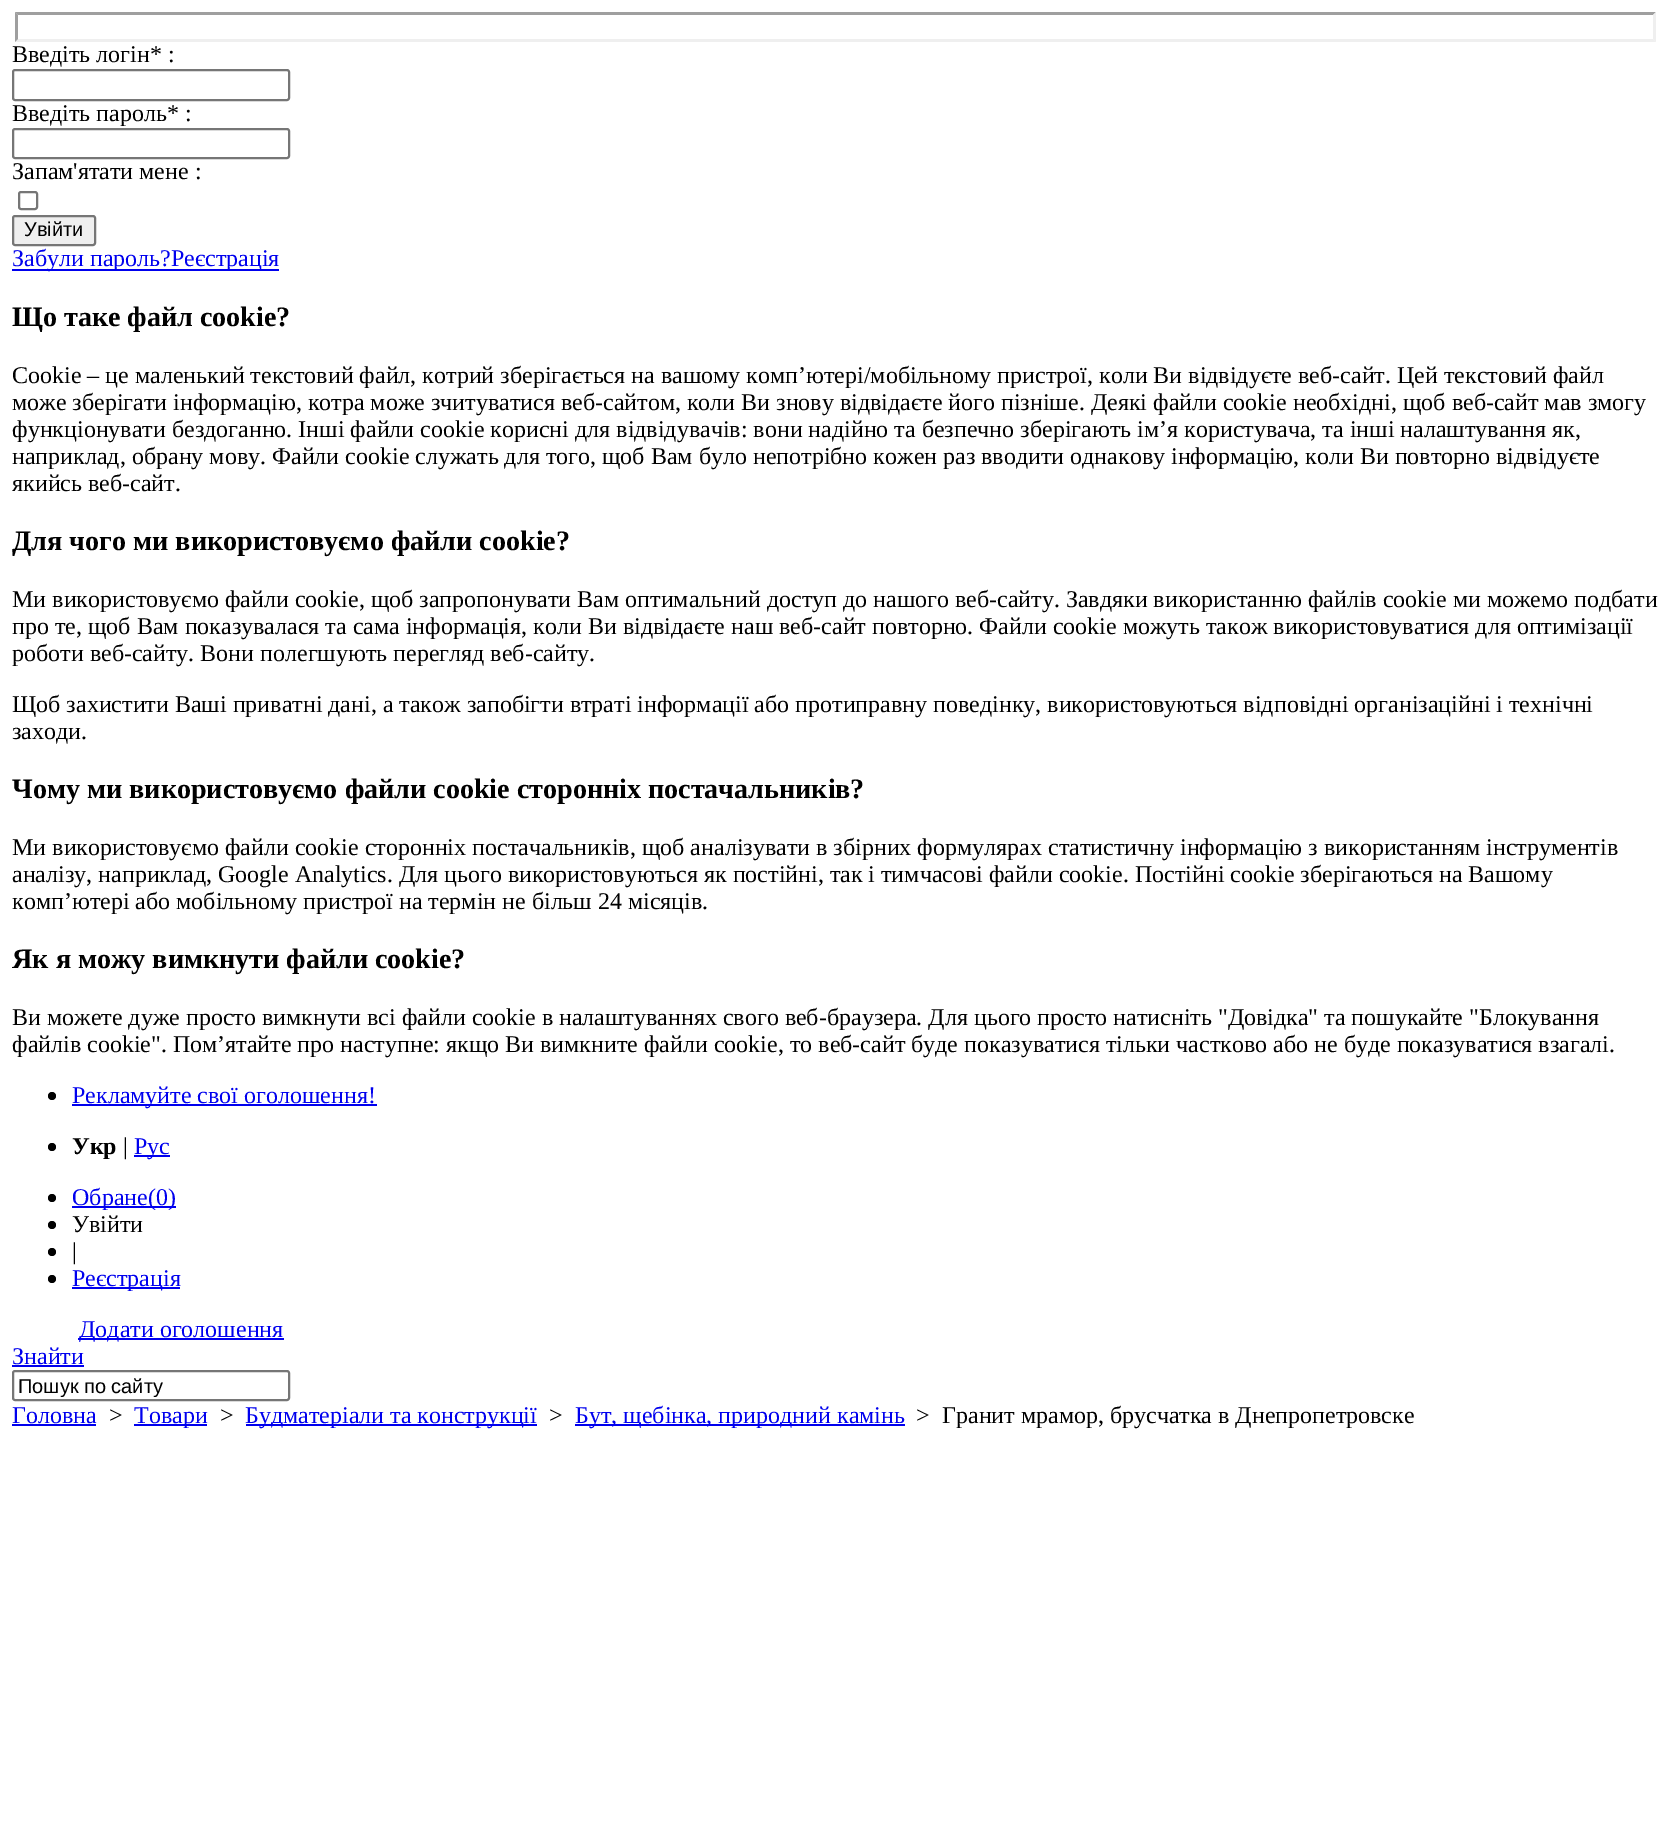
%!PS
<< /PageSize [1670 1824] >> setpagedevice
/mt/moveto load def
/li/lineto load def
/cp/closepath load def
/fl/fill load def
/st/stroke load def
/gs/gsave load def
/gr/grestore load def
/lw/setlinewidth load def
/co { dup -16 bitshift 255 div exch dup -8 bitshift 255 and 255 div exch 255 and 255 div setrgbcolor } def
/fn { [ exch dup neg 0 0 3 -1 roll 0 0 ] selectfont } def
/tx { co fn moveto show } def
/bx { co rectfill } def
/ci { newpath 0 360 arc closepath } def
/rr { 5 dict begin { /r /h /w /y /x } { exch def } forall
  x r add y moveto x w add y 2 copy h add r arct x w add y h add x 1 index r arct
  x y h add x y r arct x y 2 copy exch w add exch r arct closepath end } def
0 1824 translate 1 -1 scale
4 setmiterlimit
0 0 1670 1824 16#FFFFFF bx
16#9F9F9F co
15 12 mt 1656 12 li 1653 15 li 18 15 li cp fl
16#EFEFEF co
1656 12 mt 1656 42 li 1653 39 li 1653 15 li cp fl
1656 42 mt 15 42 li 18 39 li 1653 39 li cp fl
16#9F9F9F co
15 42 mt 15 12 li 18 15 li 18 39 li cp fl
16#767676 co
2 lw
13 70 276 30 2 rr st
13 129 276 29 2 rr st
19 192 18 17 2 rr st
16#EFEFEF co
13 216 82 29 2 rr gs fl gr
16#767676 co
st
12 269 267 2 16#0000EE bx
16#000000 co
52 1096 4 ci fl
72 1104 305 2 16#0000EE bx
16#000000 co
52 1147 4 ci fl
134 1155 36 2 16#0000EE bx
16#000000 co
52 1198 4 ci fl
72 1206 104 2 16#0000EE bx
16#000000 co
52 1225 4 ci fl
52 1252 4 ci fl
52 1279 4 ci fl
72 1287 108 2 16#0000EE bx
78 1338 206 2 16#0000EE bx
12 1365 72 2 16#0000EE bx
16#767676 co
13 1371 276 29 2 rr st
12 1424 84 2 16#0000EE bx
134 1424 73 2 16#0000EE bx
246 1424 291 2 16#0000EE bx
575 1424 330 2 16#0000EE bx
(Введіть логін* :) 12 62 /LiberationSerif-Regular 24 16#000000 tx
(Введіть пароль* :) 12 121 /LiberationSerif-Regular 24 16#000000 tx
(Запам'ятати мене :) 12 179 /LiberationSerif-Regular 24 16#000000 tx
(Увійти) 24 236 /LiberationSans-Regular 20 16#000000 tx
(Забули пароль?Реєстрація) 12 266 /LiberationSerif-Regular 24 16#0000EE tx
(Що таке файл cookie?) 12 326 /LiberationSerif-Bold 28.1 16#000000 tx
(Cookie – це маленький текстовий файл, котрий зберігається на вашому комп’ютері/мобільному пристрої, коли Ви відвідуєте веб-сайт. Цей текстовий файл) 12 383 /LiberationSerif-Regular 24 16#000000 tx
(може зберігати інформацію, котра може зчитуватися веб-сайтом, коли Ви знову відвідаєте його пізніше. Деякі файли cookie необхідні, щоб веб-сайт мав змогу) 12 410 /LiberationSerif-Regular 24 16#000000 tx
(функціонувати бездоганно. Інші файли cookie корисні для відвідувачів: вони надійно та безпечно зберігають ім’я користувача, та інші налаштування як,) 12 437 /LiberationSerif-Regular 24 16#000000 tx
(наприклад, обрану мову. Файли cookie служать для того, щоб Вам було непотрібно кожен раз вводити однакову інформацію, коли Ви повторно відвідуєте) 12 464 /LiberationSerif-Regular 24 16#000000 tx
(якийсь веб-сайт.) 12 491 /LiberationSerif-Regular 24 16#000000 tx
(Для чого ми використовуємо файли cookie?) 12 550 /LiberationSerif-Bold 28.1 16#000000 tx
(Ми використовуємо файли cookie, щоб запропонувати Вам оптимальний доступ до нашого веб-сайту. Завдяки використанню файлів cookie ми можемо подбати) 12 607 /LiberationSerif-Regular 24 16#000000 tx
(про те, щоб Вам показувалася та сама інформація, коли Ви відвідаєте наш веб-сайт повторно. Файли cookie можуть також використовуватися для оптимізації) 12 634 /LiberationSerif-Regular 24 16#000000 tx
(роботи веб-сайту. Вони полегшують перегляд веб-сайту.) 12 661 /LiberationSerif-Regular 24 16#000000 tx
(Щоб захистити Ваші приватні дані, а також запобігти втраті інформації або протиправну поведінку, використовуються відповідні організаційні і технічні) 12 712 /LiberationSerif-Regular 24 16#000000 tx
(заходи.) 12 739 /LiberationSerif-Regular 24 16#000000 tx
(Чому ми використовуємо файли cookie сторонніх постачальників?) 12 798 /LiberationSerif-Bold 28.1 16#000000 tx
(Ми використовуємо файли cookie сторонніх постачальників, щоб аналізувати в збірних формулярах статистичну інформацію з використанням інструментів) 12 855 /LiberationSerif-Regular 24 16#000000 tx
(аналізу, наприклад, Google Analytics. Для цього використовуються як постійні, так і тимчасові файли cookie. Постійні cookie зберігаються на Вашому) 12 882 /LiberationSerif-Regular 24 16#000000 tx
(комп’ютері або мобільному пристрої на термін не більш 24 місяців.) 12 909 /LiberationSerif-Regular 24 16#000000 tx
(Як я можу вимкнути файли cookie?) 12 968 /LiberationSerif-Bold 28.1 16#000000 tx
(Ви можете дуже просто вимкнути всі файли cookie в налаштуваннях свого веб-браузера. Для цього просто натисніть "Довідка" та пошукайте "Блокування) 12 1025 /LiberationSerif-Regular 24 16#000000 tx
(файлів cookie". Пом’ятайте про наступне: якщо Ви вимкните файли cookie, то веб-сайт буде показуватися тільки частково або не буде показуватися взагалі.) 12 1052 /LiberationSerif-Regular 24 16#000000 tx
(Рекламуйте свої оголошення!) 72 1103 /LiberationSerif-Regular 24 16#0000EE tx
(Укр) 72 1154 /LiberationSerif-Bold 24 16#000000 tx
(|) 123 1154 /LiberationSerif-Regular 24 16#000000 tx
(Рус) 134 1154 /LiberationSerif-Regular 24 16#0000EE tx
(Обране\(0\)) 72 1205 /LiberationSerif-Regular 24 16#0000EE tx
(Увійти) 72 1232 /LiberationSerif-Regular 24 16#000000 tx
(|) 72 1259 /LiberationSerif-Regular 24 16#000000 tx
(Реєстрація) 72 1286 /LiberationSerif-Regular 24 16#0000EE tx
(Додати оголошення) 79 1337 /LiberationSerif-Regular 24 16#0000EE tx
(Знайти) 12 1364 /LiberationSerif-Regular 24 16#0000EE tx
gs
18 1374 266 23 rectclip
(Пошук по сайту) 18 1393 /LiberationSans-Regular 20 16#000000 tx
gr
(Головна) 12 1423 /LiberationSerif-Regular 24 16#0000EE tx
(>) 109 1423 /LiberationSerif-Regular 24 16#000000 tx
(Товари) 134 1423 /LiberationSerif-Regular 24 16#0000EE tx
(>) 220 1423 /LiberationSerif-Regular 24 16#000000 tx
(Будматеріали та конструкції) 245 1423 /LiberationSerif-Regular 24 16#0000EE tx
(>) 549 1423 /LiberationSerif-Regular 24 16#000000 tx
(Бут, щебінка, природний камінь) 575 1423 /LiberationSerif-Regular 24 16#0000EE tx
(>) 916 1423 /LiberationSerif-Regular 24 16#000000 tx
(Гранит мрамор, брусчатка в Днепропетровске) 942 1423 /LiberationSerif-Regular 24 16#000000 tx
showpage
